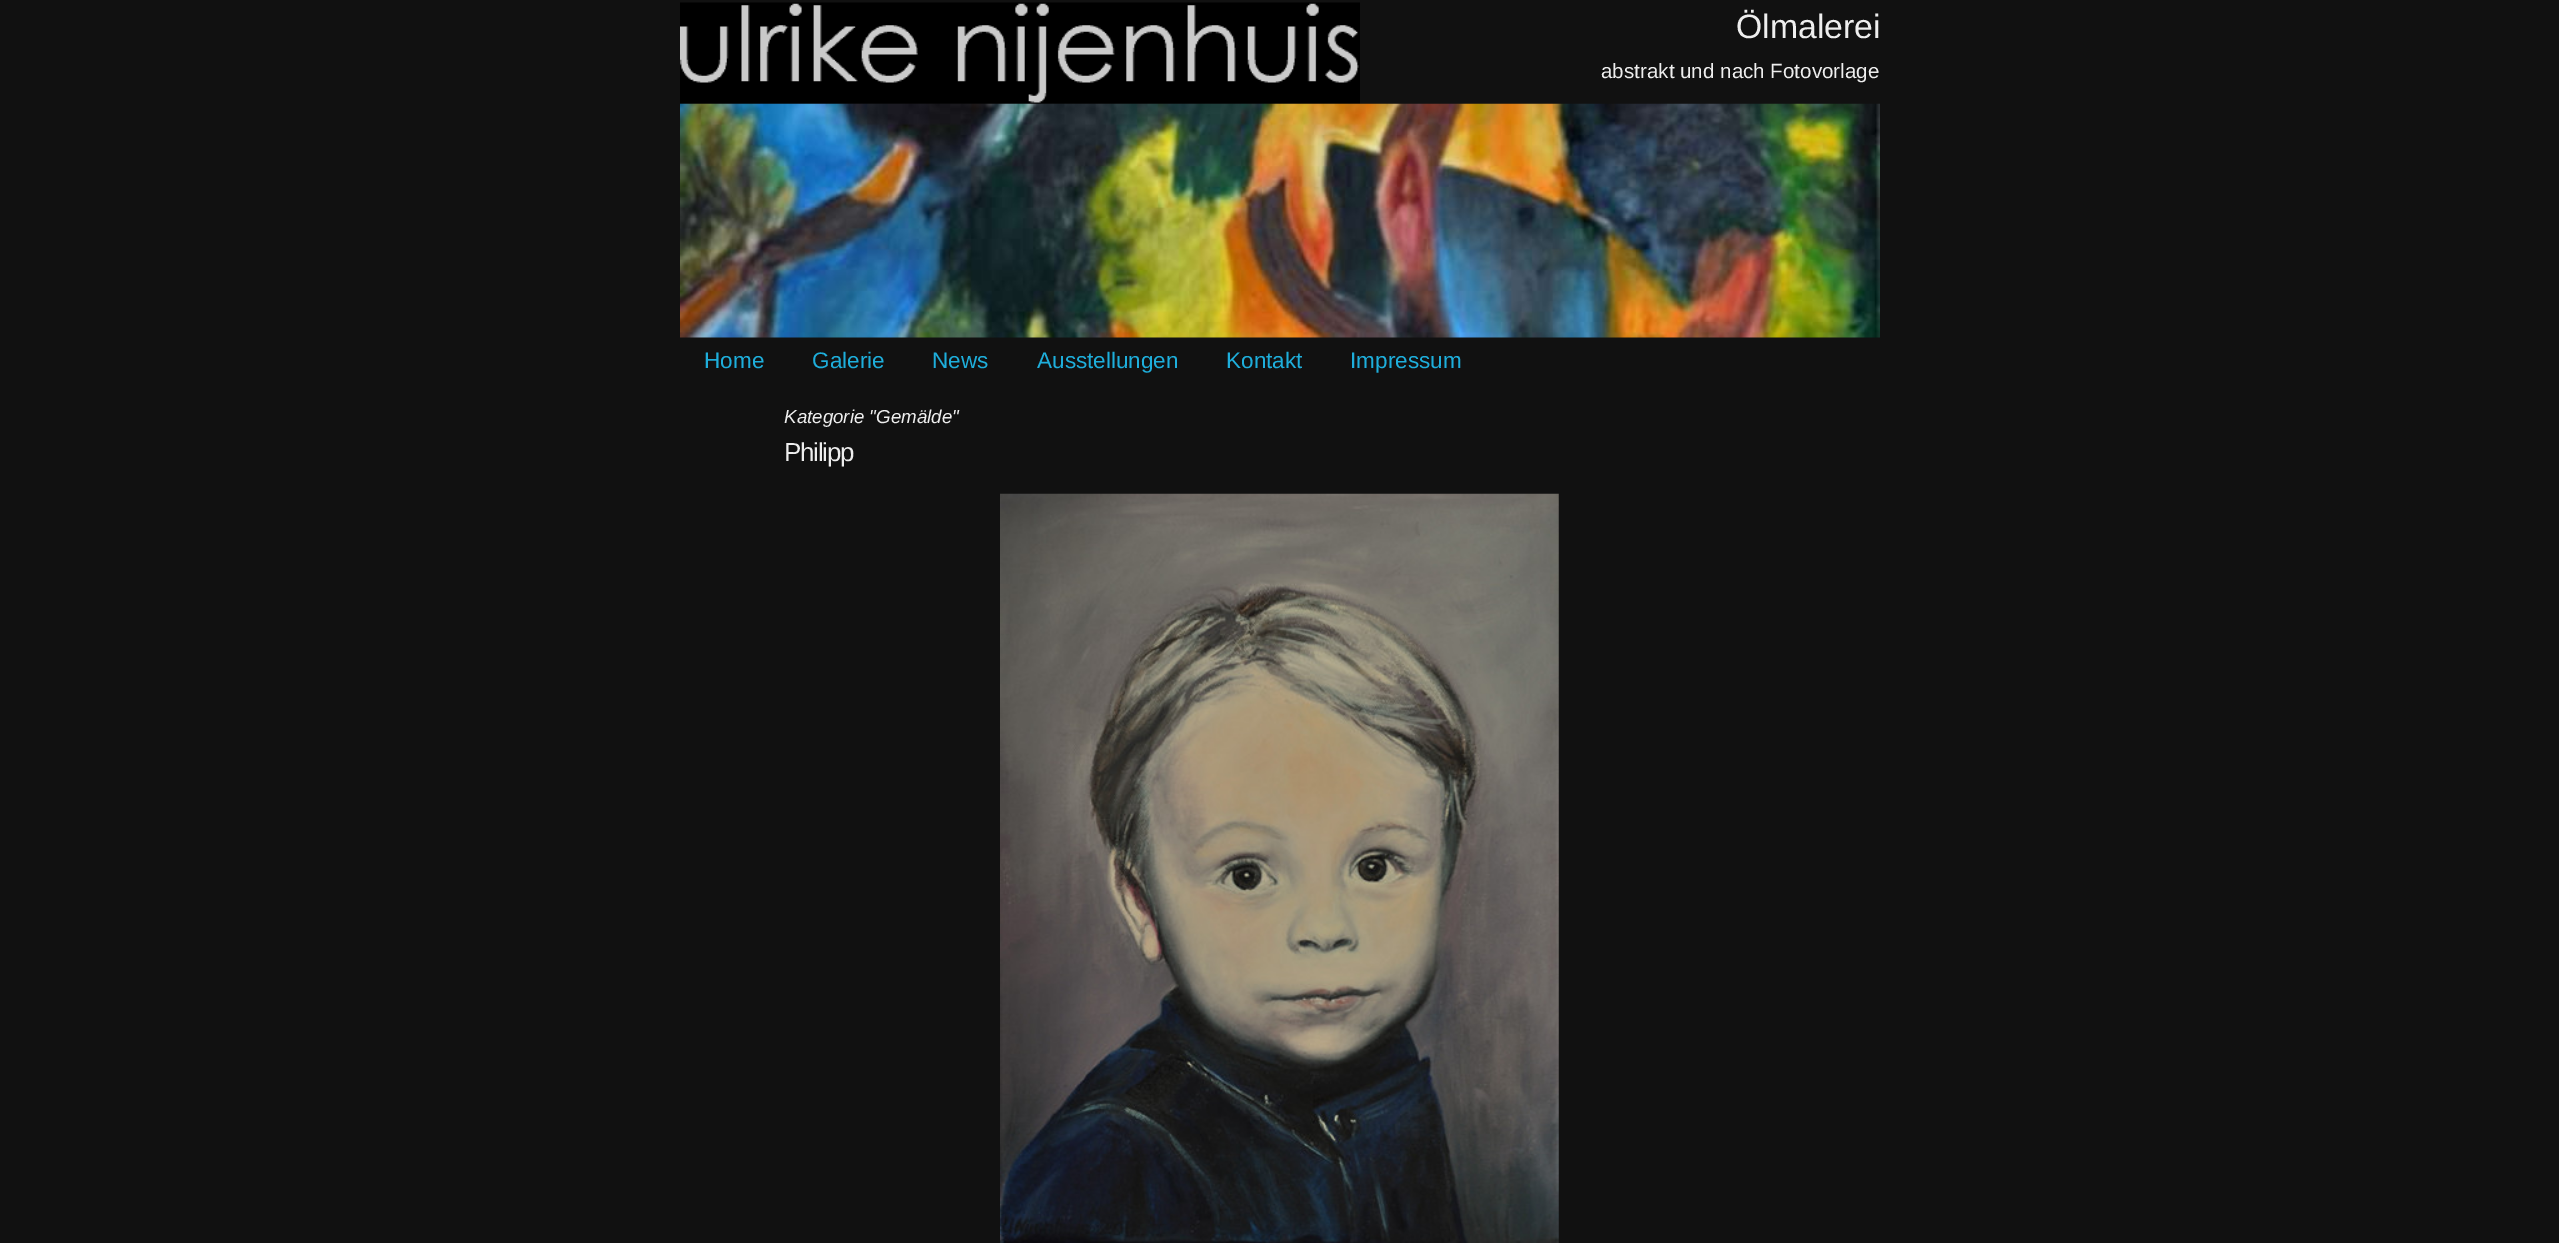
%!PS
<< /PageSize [2559 1243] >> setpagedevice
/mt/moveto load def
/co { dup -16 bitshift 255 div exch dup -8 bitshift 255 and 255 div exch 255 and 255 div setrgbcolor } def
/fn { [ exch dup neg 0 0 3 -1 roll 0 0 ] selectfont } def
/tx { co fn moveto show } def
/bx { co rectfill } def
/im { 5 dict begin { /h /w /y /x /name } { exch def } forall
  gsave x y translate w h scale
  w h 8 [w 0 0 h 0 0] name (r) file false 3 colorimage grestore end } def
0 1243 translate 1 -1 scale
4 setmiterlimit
0 0 2559 1243 16#111111 bx
(media/1.raw) 680 2 680 102 im
(media/2.raw) 680 103 1200 235 im
(media/3.raw) 1000 493 559 750 im
(Ölmalerei) 1736 38 /LiberationSans-Regular 33.75 16#EEEEEE tx
(abstrakt und nach Fotovorlage) 1601 78 /LiberationSans-Regular 20.6 16#EEEEEE tx
(Home) 704 368 /LiberationSans-Regular 22.5 16#1EAEDB tx
(Galerie) 812 368 /LiberationSans-Regular 22.5 16#1EAEDB tx
(News) 932 368 /LiberationSans-Regular 22.5 16#1EAEDB tx
(Ausstellungen) 1037 368 /LiberationSans-Regular 22.5 16#1EAEDB tx
(Kontakt) 1226 368 /LiberationSans-Regular 22.5 16#1EAEDB tx
(Impressum) 1350 368 /LiberationSans-Regular 22.5 16#1EAEDB tx
(Kategorie "Gemälde") 784 423 /LiberationSans-Italic 18.75 16#EEEEEE tx
/LiberationSans-Regular 26 fn
784 461 mt -1.25 0 (Philipp) ashow
showpage
